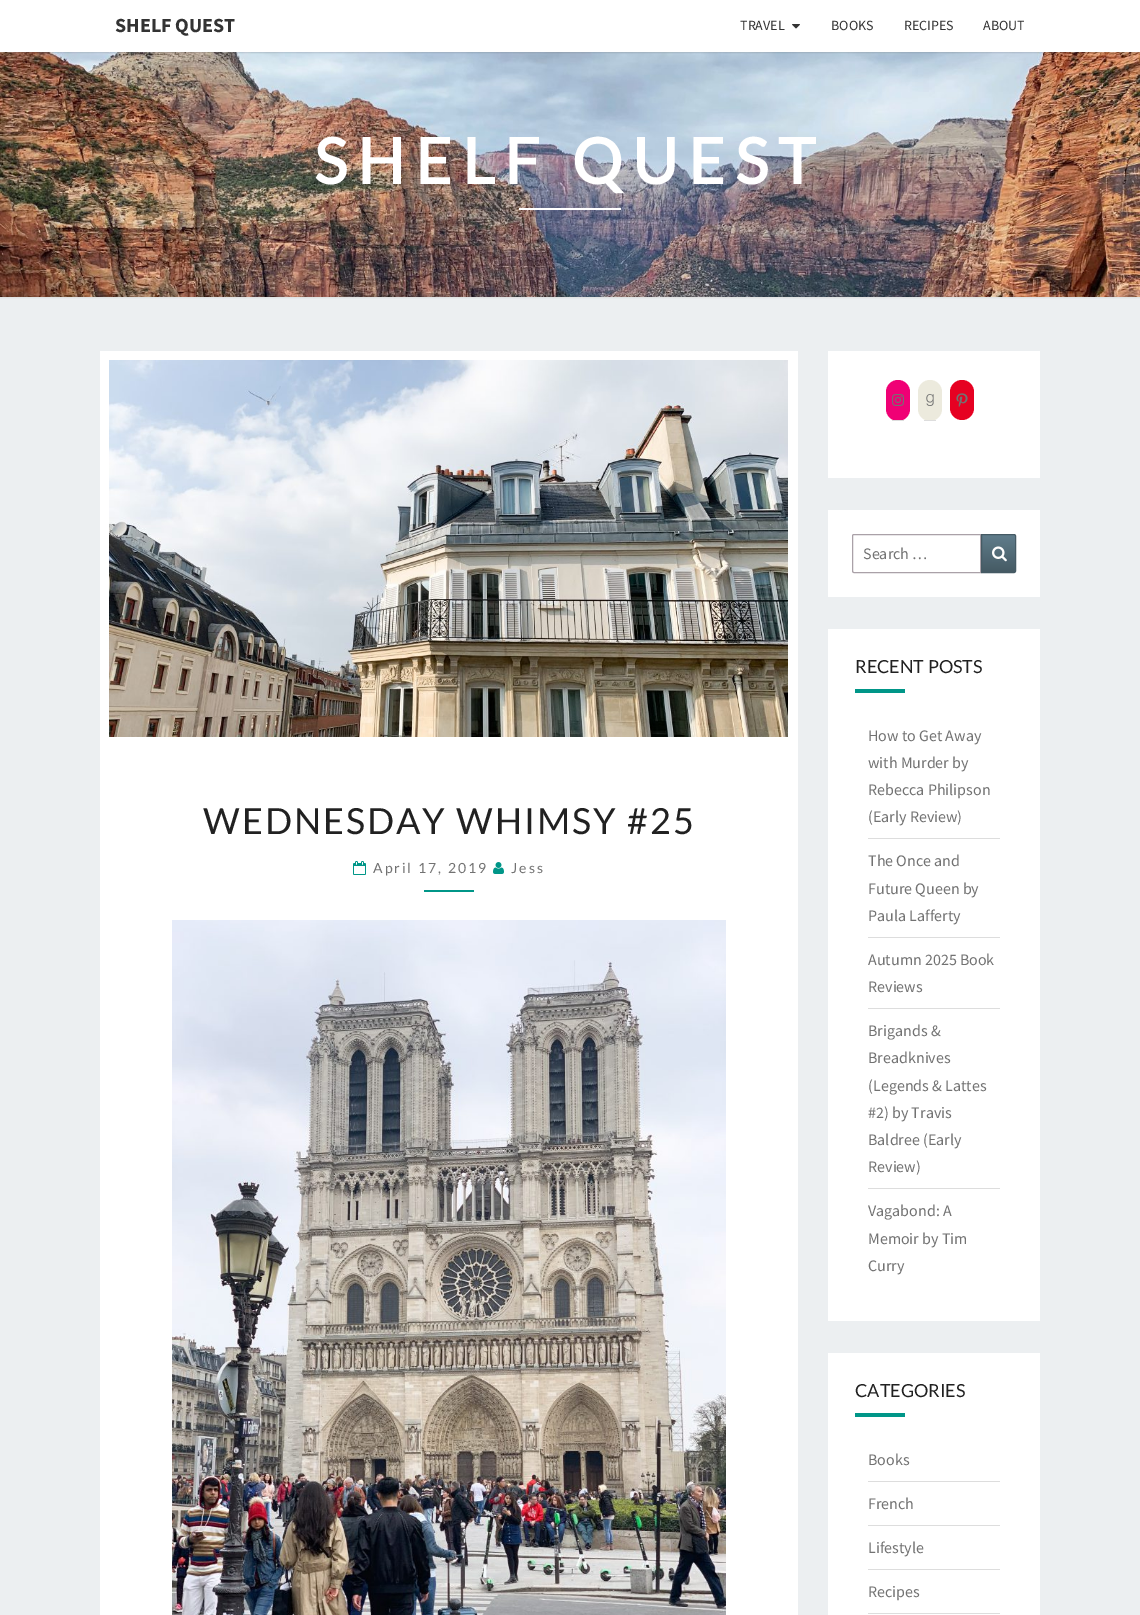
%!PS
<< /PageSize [1140 1615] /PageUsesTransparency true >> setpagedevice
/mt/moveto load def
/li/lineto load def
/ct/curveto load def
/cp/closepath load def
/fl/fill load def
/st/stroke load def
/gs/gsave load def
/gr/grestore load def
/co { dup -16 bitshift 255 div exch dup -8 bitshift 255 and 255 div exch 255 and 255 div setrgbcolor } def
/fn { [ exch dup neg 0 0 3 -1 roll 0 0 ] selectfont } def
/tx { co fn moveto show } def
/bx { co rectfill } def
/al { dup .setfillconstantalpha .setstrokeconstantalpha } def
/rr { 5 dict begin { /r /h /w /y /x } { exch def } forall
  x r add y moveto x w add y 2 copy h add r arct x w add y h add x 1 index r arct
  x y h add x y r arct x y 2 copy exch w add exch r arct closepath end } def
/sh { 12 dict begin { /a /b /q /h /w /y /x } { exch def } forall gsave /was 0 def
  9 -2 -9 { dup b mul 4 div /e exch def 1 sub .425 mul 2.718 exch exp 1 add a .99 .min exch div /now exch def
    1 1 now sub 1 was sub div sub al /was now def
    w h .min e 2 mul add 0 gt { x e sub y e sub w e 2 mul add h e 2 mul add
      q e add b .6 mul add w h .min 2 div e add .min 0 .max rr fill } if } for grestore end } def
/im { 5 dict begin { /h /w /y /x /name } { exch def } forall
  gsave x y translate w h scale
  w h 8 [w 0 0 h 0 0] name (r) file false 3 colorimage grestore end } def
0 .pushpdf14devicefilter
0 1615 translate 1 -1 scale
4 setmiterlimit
0 0 1140 1615 16#ECEFF1 bx
16#B6B6B6 co
-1 51 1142 247 0 1 .3 sh
(media/2.raw) 0 52 1140 245 im
16#646464 co
0 1 1140 52 0 .5 .2 sh
0 0 1140 52 16#FFFFFF bx
(media/1.raw) 792 24 8 5 im
519 208 102 2 16#FFFFFF bx
100 351 698 1264 16#FFFFFF bx
(media/3.raw) 109 360 679 377 im
(media/4.raw) 353 861 13 14 im
(media/5.raw) 493 862 11 12 im
424 890 50 2 16#009688 bx
(media/6.raw) 172 920 554 695 im
828 351 212 127 16#FFFFFF bx
16#F00075 co
886 380 24 41 12 rr fl
892 420 12 1 16#DDDDDD bx
(media/7.raw) 892 394 12 12 im
16#ECEADD co
918 380 24 41 12 rr fl
924 420 12 1 16#DDDDDD bx
(media/8.raw) 926 394 8 12 im
16#E60122 co
950 380 24 40 12 rr fl
(media/9.raw) 956 393 12 14 im
828 510 212 87 16#FFFFFF bx
16#AAA1A8 co
854 534.5 mt 980.5 534.5 li 980.5 572.5 li 854 572.5 li 853 572.5 852.5 572 852.5 571 ct 852.5 536 li 852.5 535 853 534.5 854 534.5 ct cp st
gs 982 535 mt 1016 535 li 1016 572 li 982 572 li cp clip newpath
<< /ShadingType 2 /ColorSpace /DeviceRGB /Coords [999 535 999 572] /Extend [true true] /Function << /FunctionType 2 /Domain [0 1] /C0 [.376 .49 .545] /C1 [.271 .353 .392] /N 1 >> >> shfill gr
16#455A64 co
981.5 534.5 mt 1014 534.5 li 1015 534.5 1015.5 535 1015.5 536 ct 1015.5 571 li 1015.5 572 1015 572.5 1014 572.5 ct 981.5 572.5 li cp st
(media/10.raw) 992 546 15 16 im
828 629 212 692 16#FFFFFF bx
855 689 50 4 16#009688 bx
868 838 132 1 16#DDDDDD bx
868 937 132 1 16#DDDDDD bx
868 1008 132 1 16#DDDDDD bx
868 1188 132 1 16#DDDDDD bx
828 1353 212 262 16#FFFFFF bx
855 1413 50 4 16#009688 bx
868 1481 132 1 16#DDDDDD bx
868 1525 132 1 16#DDDDDD bx
868 1569 132 1 16#DDDDDD bx
868 1613 132 1 16#DDDDDD bx
(SHELF QUEST) 115 32 /SourceSansPro-Bold 20 16#333333 tx
(TRAVEL) 740 30 /SourceSansPro-Regular 14 16#333333 tx
(BOOKS) 831 30 /SourceSansPro-Regular 14 16#333333 tx
(RECIPES) 904 30 /SourceSansPro-Regular 14 16#333333 tx
(ABOUT) 983 30 /SourceSansPro-Regular 14 16#333333 tx
/Lato-Bold 63 fn
16#FFFFFF co
314 184 mt 10 0 (SHELF QUEST) ashow
/Lato-Regular 36 fn
16#212121 co
203 834 mt 2 0 (WEDNESDAY WHIMSY #25) ashow
/Lato-Regular 14 fn
16#727272 co
373 873 mt 2 0 (April 17, 2019) ashow
511 873 mt 2 0 (Jess) ashow
(Search …) 863 559 /SourceSansPro-Regular 16 16#727272 tx
(RECENT POSTS) 855 673 /Lato-Regular 18 16#212121 tx
(How to Get Away) 868 741 /SourceSansPro-Regular 16 16#727272 tx
(with Murder by) 868 768 /SourceSansPro-Regular 16 16#727272 tx
(Rebecca Philipson) 868 795 /SourceSansPro-Regular 16 16#727272 tx
(\(Early Review\)) 868 822 /SourceSansPro-Regular 16 16#727272 tx
(The Once and) 868 866 /SourceSansPro-Regular 16 16#727272 tx
(Future Queen by) 868 894 /SourceSansPro-Regular 16 16#727272 tx
(Paula Lafferty) 868 921 /SourceSansPro-Regular 16 16#727272 tx
(Autumn 2025 Book) 868 965 /SourceSansPro-Regular 16 16#727272 tx
(Reviews) 868 992 /SourceSansPro-Regular 16 16#727272 tx
(Brigands &) 868 1036 /SourceSansPro-Regular 16 16#727272 tx
(Breadknives) 868 1063 /SourceSansPro-Regular 16 16#727272 tx
(\(Legends & Lattes) 868 1091 /SourceSansPro-Regular 16 16#727272 tx
(#2\) by Travis) 868 1118 /SourceSansPro-Regular 16 16#727272 tx
(Baldree \(Early) 868 1145 /SourceSansPro-Regular 16 16#727272 tx
(Review\)) 868 1172 /SourceSansPro-Regular 16 16#727272 tx
(Vagabond: A) 868 1216 /SourceSansPro-Regular 16 16#727272 tx
(Memoir by Tim) 868 1244 /SourceSansPro-Regular 16 16#727272 tx
(Curry) 868 1271 /SourceSansPro-Regular 16 16#727272 tx
(CATEGORIES) 855 1397 /Lato-Regular 18 16#212121 tx
(Books) 868 1465 /SourceSansPro-Regular 16 16#727272 tx
(French) 868 1509 /SourceSansPro-Regular 16 16#727272 tx
(Lifestyle) 868 1553 /SourceSansPro-Regular 16 16#727272 tx
(Recipes) 868 1597 /SourceSansPro-Regular 16 16#727272 tx
.poppdf14devicefilter showpage
